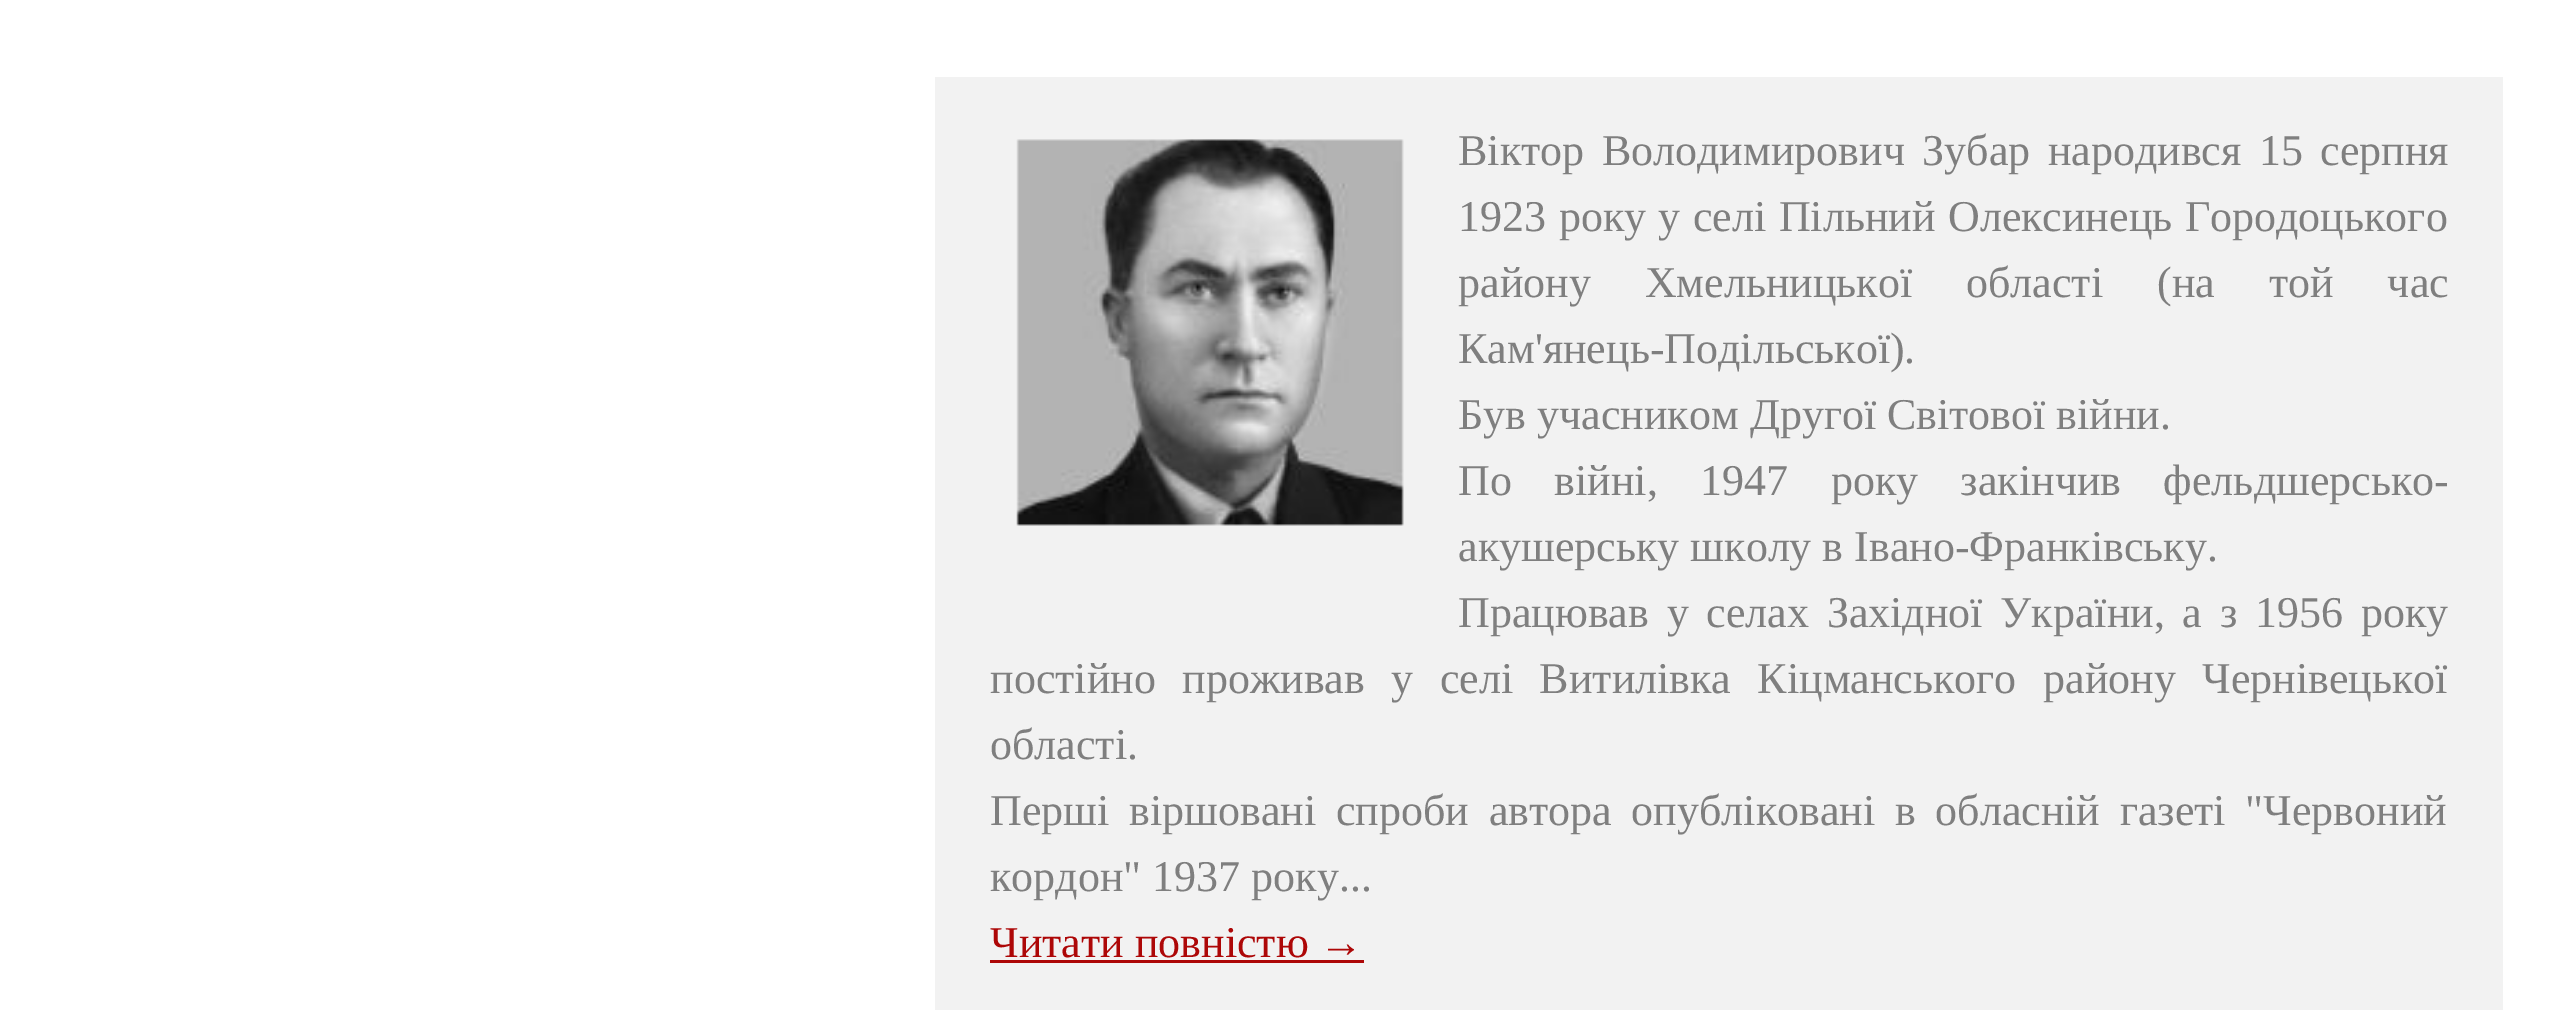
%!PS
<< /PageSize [2557 1010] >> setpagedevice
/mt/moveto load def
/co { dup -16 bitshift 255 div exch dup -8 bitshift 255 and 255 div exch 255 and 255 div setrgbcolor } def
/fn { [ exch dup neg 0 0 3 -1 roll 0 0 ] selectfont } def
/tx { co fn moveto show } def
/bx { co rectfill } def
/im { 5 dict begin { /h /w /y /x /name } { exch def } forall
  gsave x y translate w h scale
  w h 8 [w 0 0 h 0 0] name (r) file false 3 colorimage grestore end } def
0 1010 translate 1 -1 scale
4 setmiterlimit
0 0 2557 1010 16#FFFFFF bx
935 77 1568 933 16#F2F2F2 bx
(media/1.raw) 1016 139 388 387 im
990 960 374 3 16#AD0707 bx
/LiberationSerif-Regular 44 fn
16#7F7F7F co
1458 165 mt 6.5 0 32 (Віктор Володимирович Зубар народився 15 серпня) widthshow
1458 231 mt 1.5 0 32 (1923 року у селі Пільний Олексинець Городоцького) widthshow
1458 297 mt 43 0 32 (району Хмельницької області \(на той час) widthshow
(Кам'янець-Подільської\).) 1458 363 /LiberationSerif-Regular 44 16#7F7F7F tx
(Був учасником Другої Світової війни.) 1458 429 /LiberationSerif-Regular 44 16#7F7F7F tx
1458 495 mt 31.5 0 32 (По війні, 1947 року закінчив фельдшерсько-) widthshow
(акушерську школу в Івано-Франківську.) 1458 561 /LiberationSerif-Regular 44 16#7F7F7F tx
1458 627 mt 6.75 0 32 (Працював у селах Західної України, а з 1956 року) widthshow
990 693 mt 15.5 0 32 (постійно проживав у селі Витилівка Кіцманського району Чернівецької) widthshow
(області.) 990 759 /LiberationSerif-Regular 44 16#7F7F7F tx
990 825 mt 8.75 0 32 (Перші віршовані спроби автора опубліковані в обласній газеті "Червоний) widthshow
(кордон" 1937 року...) 990 891 /LiberationSerif-Regular 44 16#7F7F7F tx
(Читати повністю →) 990 957 /LiberationSerif-Regular 44 16#AD0707 tx
showpage
